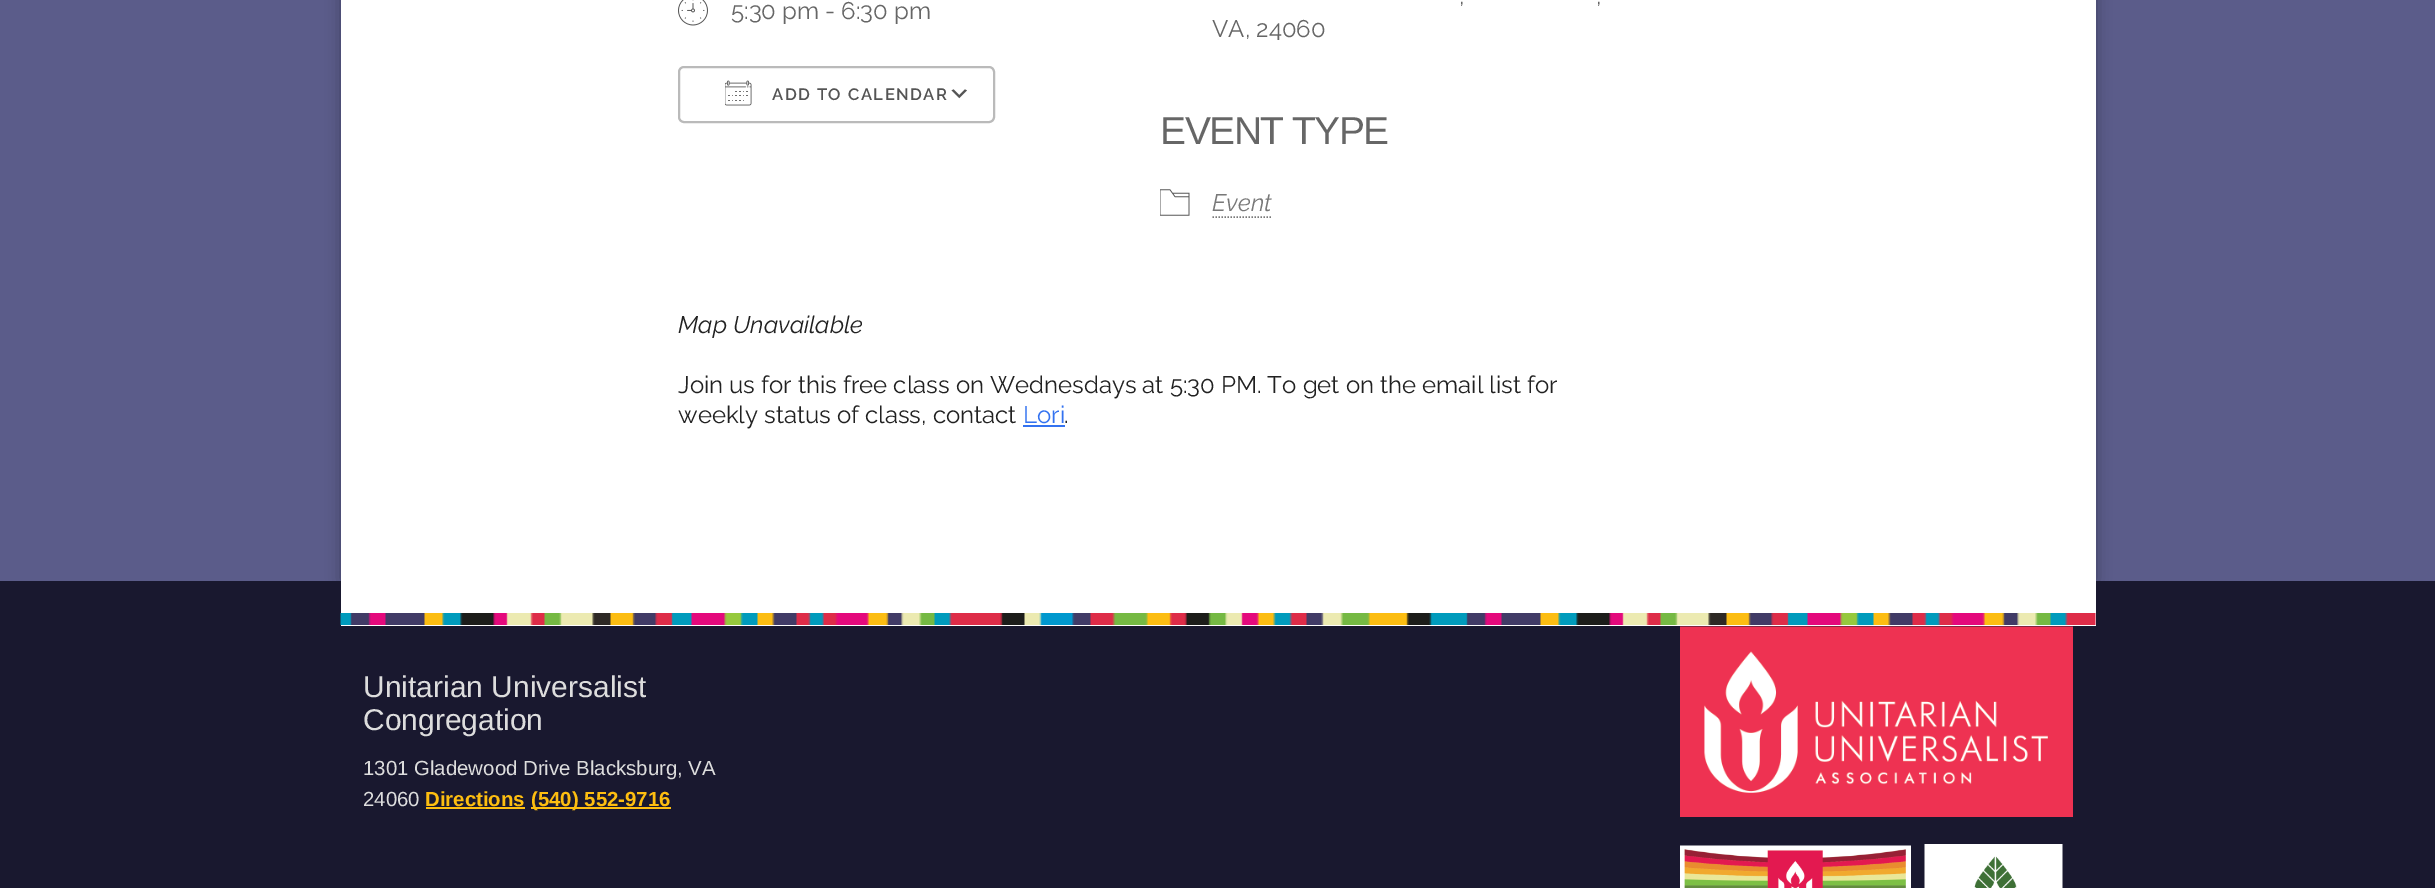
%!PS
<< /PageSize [2435 888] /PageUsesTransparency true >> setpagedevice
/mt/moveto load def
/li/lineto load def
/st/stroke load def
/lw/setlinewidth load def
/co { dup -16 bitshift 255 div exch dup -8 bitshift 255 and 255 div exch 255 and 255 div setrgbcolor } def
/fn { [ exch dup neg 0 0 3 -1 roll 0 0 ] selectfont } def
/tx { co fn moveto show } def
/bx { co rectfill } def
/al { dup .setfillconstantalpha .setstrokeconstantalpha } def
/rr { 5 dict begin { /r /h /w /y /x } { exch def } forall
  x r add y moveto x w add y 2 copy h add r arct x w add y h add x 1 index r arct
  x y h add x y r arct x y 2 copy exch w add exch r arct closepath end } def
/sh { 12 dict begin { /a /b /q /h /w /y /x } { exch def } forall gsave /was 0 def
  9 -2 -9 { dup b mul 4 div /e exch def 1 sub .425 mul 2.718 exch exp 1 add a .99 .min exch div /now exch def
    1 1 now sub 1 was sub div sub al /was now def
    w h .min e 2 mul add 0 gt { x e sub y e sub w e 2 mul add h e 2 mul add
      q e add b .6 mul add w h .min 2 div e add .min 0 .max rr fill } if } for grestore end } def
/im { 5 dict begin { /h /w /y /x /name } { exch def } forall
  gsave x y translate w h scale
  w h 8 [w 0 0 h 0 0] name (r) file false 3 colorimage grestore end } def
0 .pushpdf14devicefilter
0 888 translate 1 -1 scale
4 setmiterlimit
0 0 2435 888 16#5B5C8A bx
16#000000 co
341 -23 1755 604 0 7.5 .3 sh
341 0 1755 581 16#FFFFFF bx
(media/1.raw) 678 0 30 26 im
(media/2.raw) 951 89 16 10 im
16#BABABA co
2 lw
679 67 315 55 5 rr st
(media/3.raw) 725 80 27 26 im
(media/4.raw) 1160 189 30 27 im
16#787878 co
1.5 lw
[1.5 1.5] 0 setdash
1212.5 217 mt 1272 217 li st
1023 425 42 2 16#3372F0 bx
0 581 2435 307 16#19182F bx
341 581 1755 45 16#FFFFFF bx
(media/5.raw) 340 613 1756 12 im
426 807 99 2 16#FEBE10 bx
531 807 140 2 16#FEBE10 bx
(media/6.raw) 1680 626 393 191 im
(media/7.raw) 1680 845 231 43 im
(media/8.raw) 1924 844 139 44 im
(5:30 pm - 6:30 pm) 731 19 /Raleway-Regular 24 16#666666 tx
/Raleway-SemiBold 16.5 fn
16#545454 co
772 100 mt 1.5 0 (ADD TO CALENDAR) ashow
(,) 1459 4 /Raleway-Regular 24 16#666666 tx
(,) 1596 4 /Raleway-Regular 24 16#666666 tx
(VA, 24060) 1212 37 /Raleway-Regular 24 16#666666 tx
/LiberationSans-Regular 39 fn
1160 144 mt -1.5 0 (EVENT TYPE) ashow
(Event) 1212 211 /Raleway-Italic 24 16#787878 tx
(Map Unavailable) 678 333 /Raleway-Italic 24 16#212121 tx
(Join us for this free class on Wednesdays at 5:30 PM. To get on the email list for) 678 393 /Raleway-Regular 24 16#212121 tx
(weekly status of class, contact) 678 423 /Raleway-Regular 24 16#212121 tx
(Lori) 1023 423 /Raleway-Regular 24 16#3372F0 tx
(.) 1064 423 /Raleway-Regular 24 16#212121 tx
(Unitarian Universalist) 363 697 /LiberationSans-Regular 30 16#DDDDDD tx
(Congregation) 363 730 /LiberationSans-Regular 30 16#DDDDDD tx
(1301 Gladewood Drive Blacksburg, VA) 363 775 /LiberationSans-Regular 20.4 16#DDDDDD tx
(24060) 363 806 /LiberationSans-Regular 20.4 16#DDDDDD tx
(Directions) 425 806 /LiberationSans-Bold 20.4 16#FEBE10 tx
(\(540\) 552-9716) 531 806 /LiberationSans-Bold 20.4 16#FEBE10 tx
.poppdf14devicefilter showpage
